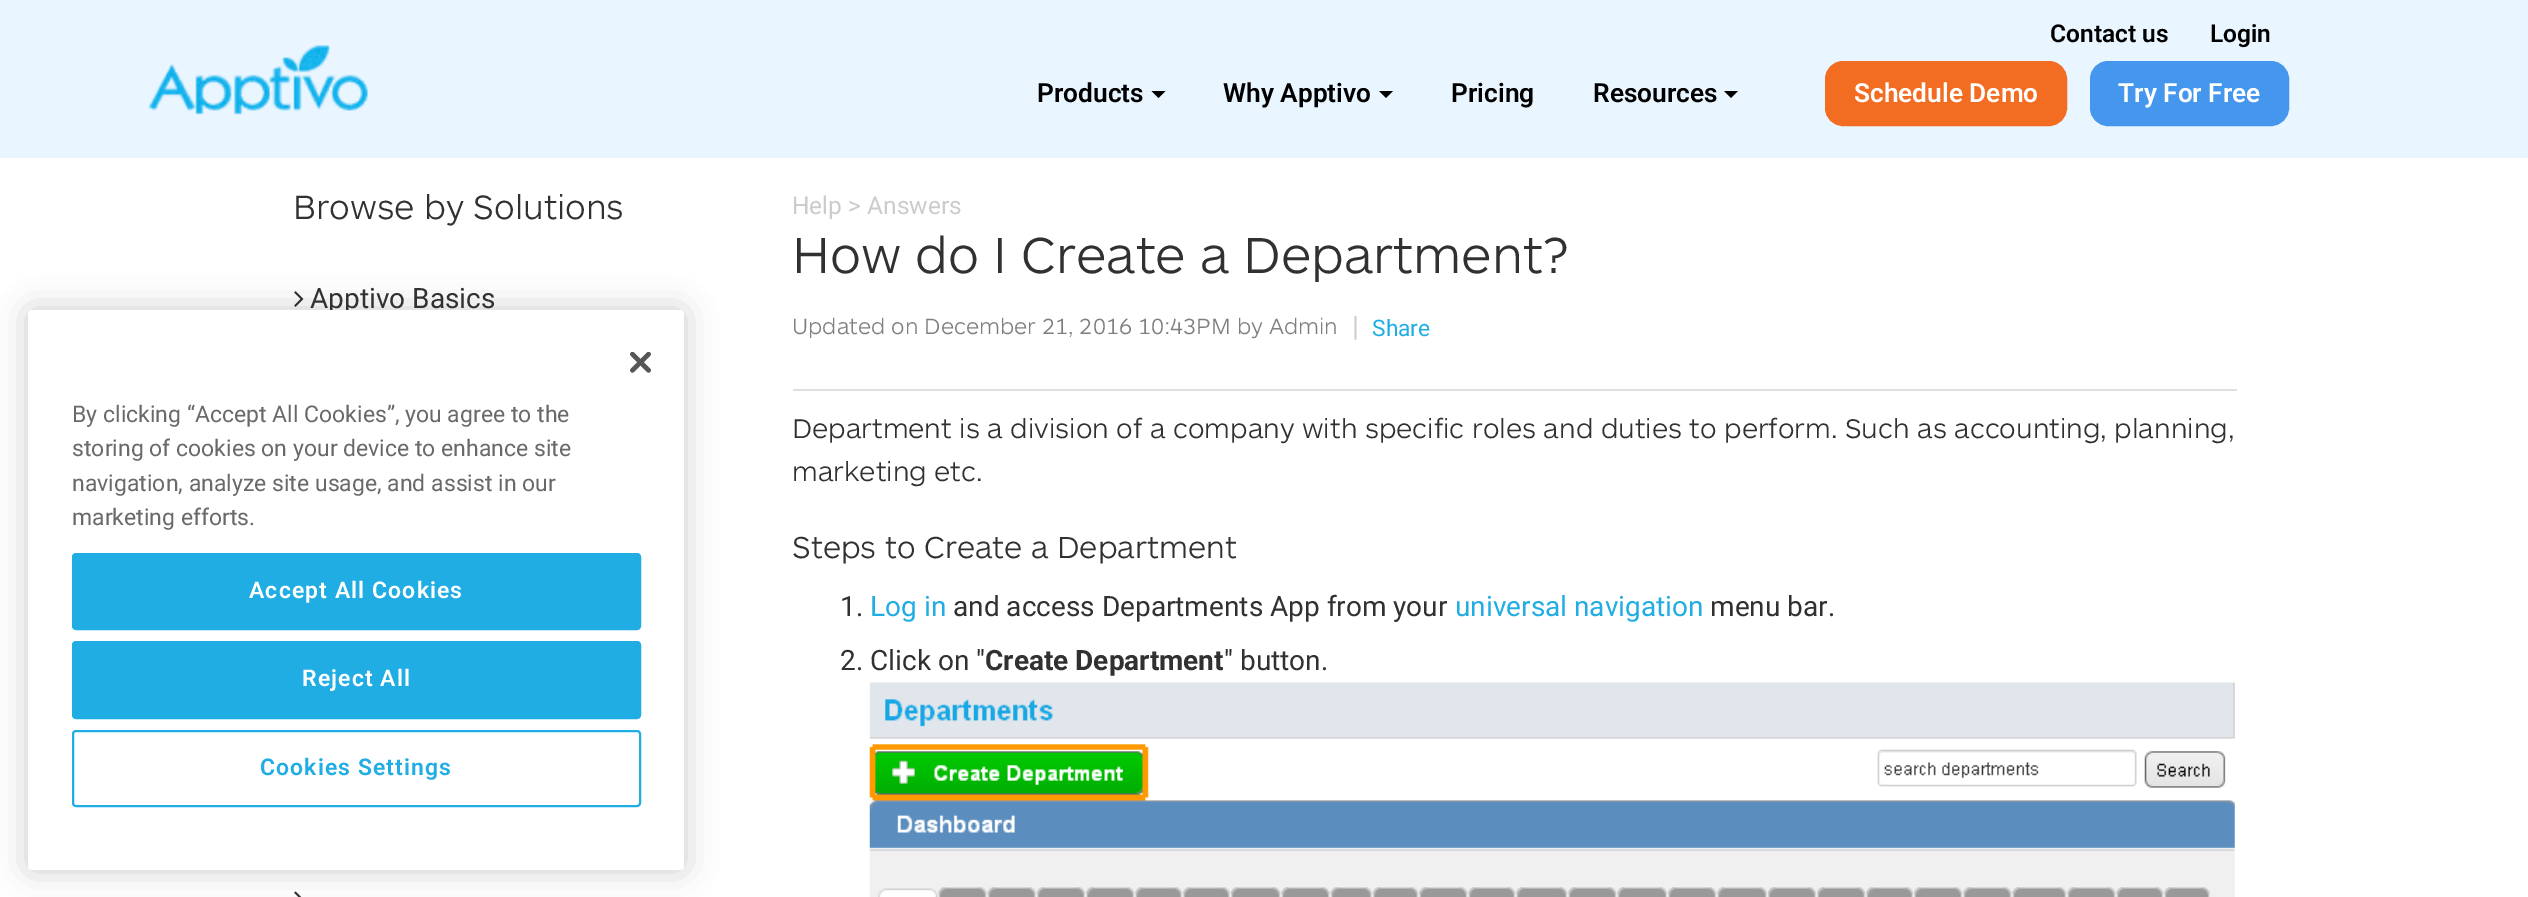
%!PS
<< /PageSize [2528 897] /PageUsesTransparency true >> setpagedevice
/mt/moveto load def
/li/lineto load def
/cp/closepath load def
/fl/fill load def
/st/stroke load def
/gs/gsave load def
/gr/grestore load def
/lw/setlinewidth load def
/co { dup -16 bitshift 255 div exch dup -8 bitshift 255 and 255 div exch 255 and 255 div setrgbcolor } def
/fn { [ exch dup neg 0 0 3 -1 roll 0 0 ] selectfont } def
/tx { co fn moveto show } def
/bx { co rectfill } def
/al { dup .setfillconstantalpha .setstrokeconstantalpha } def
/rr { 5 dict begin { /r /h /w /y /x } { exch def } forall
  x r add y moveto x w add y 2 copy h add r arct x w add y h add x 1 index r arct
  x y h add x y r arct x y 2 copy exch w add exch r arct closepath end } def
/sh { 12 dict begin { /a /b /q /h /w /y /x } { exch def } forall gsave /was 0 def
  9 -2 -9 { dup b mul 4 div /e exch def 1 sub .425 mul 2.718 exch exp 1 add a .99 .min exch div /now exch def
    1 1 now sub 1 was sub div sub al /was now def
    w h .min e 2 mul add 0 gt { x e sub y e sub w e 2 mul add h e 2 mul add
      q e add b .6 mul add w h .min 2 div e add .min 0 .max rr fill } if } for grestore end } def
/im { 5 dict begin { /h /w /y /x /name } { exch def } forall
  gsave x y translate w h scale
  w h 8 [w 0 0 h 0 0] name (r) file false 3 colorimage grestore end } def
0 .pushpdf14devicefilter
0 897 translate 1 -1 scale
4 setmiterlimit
0 0 2528 897 16#FFFFFF bx
0 0 2528 158 16#E9F5FF bx
(media/1.raw) 148 45 220 70 im
16#000000 co
1151.5 91 mt 1165.5 91 li 1158.5 98 li cp fl
1379 91 mt 1393 91 li 1386 98 li cp fl
1724 91 mt 1738 91 li 1731 98 li cp fl
16#F26D21 co
1826 62 240 63 17 rr gs fl gr
2 lw
st
16#4596ED co
2091 62 197 63 17 rr gs fl gr
st
(media/2.raw) 294 291 10 16 im
(media/3.raw) 294 891 8 6 im
793 389 1444 2 16#E0E0E0 bx
(media/4.raw) 869 682 1366 215 im
16#000000 co
28 310 656 560 4 16 .2 sh
(Contact us) 2050 42 /Roboto-SemiBold 24.5 16#000000 tx
(Login) 2210 42 /Roboto-SemiBold 24.5 16#000000 tx
(Products) 1037 102 /Roboto-SemiBold 26.25 16#000000 tx
(Why Apptivo) 1223 102 /Roboto-SemiBold 26.25 16#000000 tx
(Pricing) 1451 102 /Roboto-SemiBold 26.25 16#000000 tx
(Resources) 1593 102 /Roboto-SemiBold 26.25 16#000000 tx
(Schedule Demo) 1854 102 /Roboto-SemiBold 26.25 16#FFFFFF tx
(Try For Free) 2118 102 /Roboto-SemiBold 26.25 16#FFFFFF tx
(Browse by Solutions) 293 219 /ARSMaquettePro-Light 35 16#313131 tx
(Apptivo Basics) 310 308 /Roboto-Regular 28 16#313131 tx
(Help > Answers) 792 214 /Roboto-Regular 24.5 16#CCCCCC tx
(How do I Create a Department?) 792 273 /ARSMaquettePro-Light 52.5 16#313131 tx
(Updated on December 21, 2016 10:43PM by Admin) 792 334 /ARSMaquettePro-Light 22.75 16#7F7F7F tx
(|) 1352 336 /Roboto-Regular 28 16#CCCCCC tx
(Share) 1372 336 /Roboto-Regular 22.75 16#1FADE4 tx
(Department is a division of a company with specific roles and duties to perform. Such as accounting, planning,) 792 438 /ARSMaquettePro-Light 28 16#313131 tx
(marketing etc.) 792 481 /ARSMaquettePro-Light 28 16#313131 tx
(Steps to Create a Department) 792 558 /ARSMaquettePro-Light 31.5 16#313131 tx
(1.) 840 616 /Roboto-Regular 28 16#313131 tx
(Log in) 870 616 /Roboto-Regular 28 16#1FADE4 tx
(and access Departments App from your) 953 616 /Roboto-Regular 28 16#313131 tx
(universal navigation) 1455 616 /Roboto-Regular 28 16#1FADE4 tx
(menu bar.) 1710 616 /Roboto-Regular 28 16#313131 tx
(2. Click on ") 840 670 /Roboto-Regular 28 16#313131 tx
(Create Department) 985 670 /Roboto-Bold 28 16#313131 tx
(" button.) 1224 670 /Roboto-Regular 28 16#313131 tx
16#FFFFFF co
28 310 656 560 4 rr fl
(media/5.raw) 630 352 21 21 im
(By clicking “Accept All Cookies”, you agree to the) 72 422 /Roboto-Regular 23 16#696969 tx
(storing of cookies on your device to enhance site) 72 456 /Roboto-Regular 23 16#696969 tx
(navigation, analyze site usage, and assist in our) 72 491 /Roboto-Regular 23 16#696969 tx
(marketing efforts.) 72 525 /Roboto-Regular 23 16#696969 tx
16#1FADE4 co
73 554 567 75 3 rr gs fl gr
st
/Roboto-SemiBold 23 fn
16#FFFFFF co
249 598 mt 1.1 0 (Accept All Cookies) ashow
16#1FADE4 co
73 642 567 76 3 rr gs fl gr
st
16#FFFFFF co
302 686 mt 1.1 0 (Reject All) ashow
16#1FADE4 co
73 731 567 75 3 rr st
260 775 mt 1.1 0 (Cookies Settings) ashow
.poppdf14devicefilter showpage
